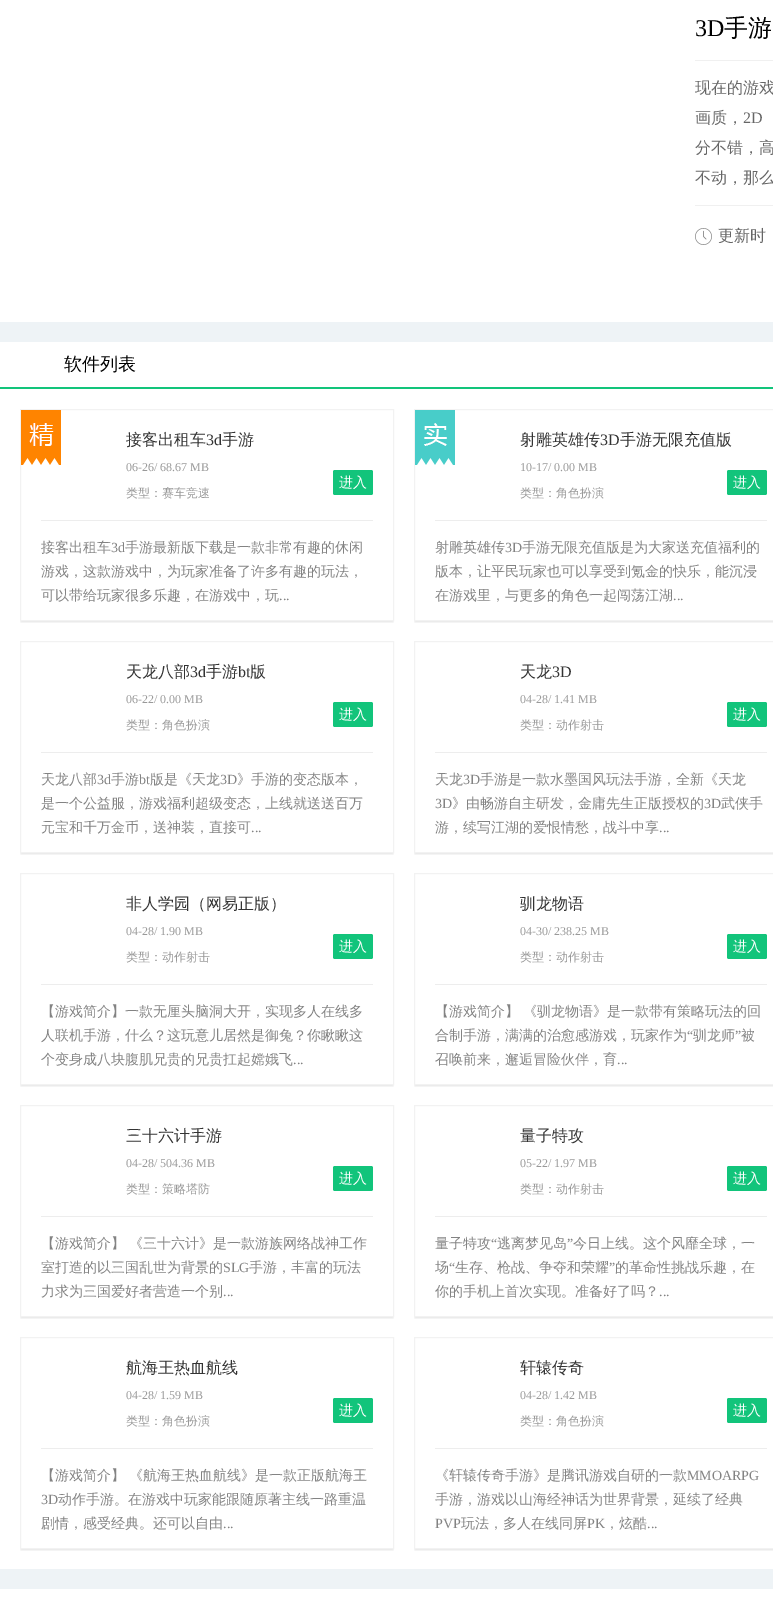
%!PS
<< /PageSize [773 1621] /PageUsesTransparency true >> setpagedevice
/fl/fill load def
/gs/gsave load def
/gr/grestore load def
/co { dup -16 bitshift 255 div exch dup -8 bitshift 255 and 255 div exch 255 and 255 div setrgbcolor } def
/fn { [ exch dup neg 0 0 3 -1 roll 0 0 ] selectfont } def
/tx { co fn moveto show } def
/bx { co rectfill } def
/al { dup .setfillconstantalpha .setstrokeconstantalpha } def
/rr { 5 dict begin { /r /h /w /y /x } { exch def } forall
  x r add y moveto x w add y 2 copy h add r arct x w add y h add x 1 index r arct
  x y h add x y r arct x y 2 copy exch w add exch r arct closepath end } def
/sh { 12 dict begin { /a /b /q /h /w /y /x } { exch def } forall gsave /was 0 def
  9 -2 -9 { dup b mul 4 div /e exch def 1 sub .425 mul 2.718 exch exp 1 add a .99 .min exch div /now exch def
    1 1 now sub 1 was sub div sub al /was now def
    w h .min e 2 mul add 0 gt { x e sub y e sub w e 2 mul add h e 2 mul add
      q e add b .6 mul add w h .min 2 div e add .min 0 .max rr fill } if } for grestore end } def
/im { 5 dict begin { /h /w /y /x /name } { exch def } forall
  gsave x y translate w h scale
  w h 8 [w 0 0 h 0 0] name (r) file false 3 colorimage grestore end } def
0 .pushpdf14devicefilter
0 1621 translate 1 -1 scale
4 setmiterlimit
0 0 773 1621 16#EEF3F6 bx
0 0 773 322 16#FFFFFF bx
695 60 78 1 16#F0F0F0 bx
695 205 78 1 16#F0F0F0 bx
(media/1.raw) 695 228 17 17 im
0 342 773 1227 16#FFFFFF bx
0 387 773 2 16#12C47B bx
gs
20 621 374 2 rectclip
16#000000 co
21 412 372 210 0 1 .12 sh
gr
16#F2F2F2 co
20.5 409.5 373 211 rectstroke
(media/2.raw) 21 410 40 55 im
16#12C47B co
333 470 40 25 2 rr fl
41 520 332 1 16#EDEDED bx
gs
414 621 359 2 rectclip
16#000000 co
415 412 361 210 0 1 .12 sh
gr
16#F2F2F2 co
414.5 409.5 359 211 rectstroke
(media/3.raw) 415 410 40 55 im
16#12C47B co
727 470 40 25 2 rr fl
435 520 332 1 16#EDEDED bx
gs
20 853 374 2 rectclip
16#000000 co
21 644 372 210 0 1 .12 sh
gr
16#F2F2F2 co
20.5 641.5 373 211 rectstroke
16#12C47B co
333 702 40 25 2 rr fl
41 752 332 1 16#EDEDED bx
gs
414 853 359 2 rectclip
16#000000 co
415 644 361 210 0 1 .12 sh
gr
16#F2F2F2 co
414.5 641.5 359 211 rectstroke
16#12C47B co
727 702 40 25 2 rr fl
435 752 332 1 16#EDEDED bx
gs
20 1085 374 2 rectclip
16#000000 co
21 876 372 210 0 1 .12 sh
gr
16#F2F2F2 co
20.5 873.5 373 211 rectstroke
16#12C47B co
333 934 40 25 2 rr fl
41 984 332 1 16#EDEDED bx
gs
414 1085 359 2 rectclip
16#000000 co
415 876 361 210 0 1 .12 sh
gr
16#F2F2F2 co
414.5 873.5 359 211 rectstroke
16#12C47B co
727 934 40 25 2 rr fl
435 984 332 1 16#EDEDED bx
gs
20 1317 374 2 rectclip
16#000000 co
21 1108 372 210 0 1 .12 sh
gr
16#F2F2F2 co
20.5 1105.5 373 211 rectstroke
16#12C47B co
333 1166 40 25 2 rr fl
41 1216 332 1 16#EDEDED bx
gs
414 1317 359 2 rectclip
16#000000 co
415 1108 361 210 0 1 .12 sh
gr
16#F2F2F2 co
414.5 1105.5 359 211 rectstroke
16#12C47B co
727 1166 40 25 2 rr fl
435 1216 332 1 16#EDEDED bx
gs
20 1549 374 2 rectclip
16#000000 co
21 1340 372 210 0 1 .12 sh
gr
16#F2F2F2 co
20.5 1337.5 373 211 rectstroke
16#12C47B co
333 1398 40 25 2 rr fl
41 1448 332 1 16#EDEDED bx
gs
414 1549 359 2 rectclip
16#000000 co
415 1340 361 210 0 1 .12 sh
gr
16#F2F2F2 co
414.5 1337.5 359 211 rectstroke
16#12C47B co
727 1398 40 25 2 rr fl
435 1448 332 1 16#EDEDED bx
0 1589 773 32 16#FFFFFF bx
(3D) 695 36 /LiberationSerif-Regular 24 16#000000 tx
(手游) 724 36 /WenQuanYiZenHei-Medium 24 16#000000 tx
(现在的游戏) 695 93 /WenQuanYiZenHei-Medium 16 16#666666 tx
(画质，) 695 123 /WenQuanYiZenHei-Medium 16 16#666666 tx
(2D) 743 123 /LiberationSerif-Regular 16 16#666666 tx
(分不错，高) 695 153 /WenQuanYiZenHei-Medium 16 16#666666 tx
(不动，那么) 695 183 /WenQuanYiZenHei-Medium 16 16#666666 tx
(更新时) 718 241 /WenQuanYiZenHei-Medium 16 16#666666 tx
(软件列表) 64 370 /WenQuanYiZenHei-Medium 18 16#000000 tx
(接客出租车) 126 445 /WenQuanYiZenHei-Medium 16 16#333333 tx
(3d) 206 445 /LiberationSerif-Regular 16 16#333333 tx
(手游) 222 445 /WenQuanYiZenHei-Medium 16 16#333333 tx
(06-26/ 68.67 MB) 126 471 /LiberationSerif-Regular 12 16#999999 tx
(进入) 339 487 /WenQuanYiZenHei-Medium 14 16#FFFFFF tx
(类型：赛车竞速) 126 497 /WenQuanYiZenHei-Medium 12 16#999999 tx
(接客出租车) 41 552 /WenQuanYiZenHei-Medium 14 16#838383 tx
(3d) 111 552 /LiberationSerif-Regular 14 16#838383 tx
(手游最新版下载是一款非常有趣的休闲) 125 552 /WenQuanYiZenHei-Medium 14 16#838383 tx
(游戏，这款游戏中，为玩家准备了许多有趣的玩法，) 41 576 /WenQuanYiZenHei-Medium 14 16#838383 tx
(可以带给玩家很多乐趣，在游戏中，玩) 41 600 /WenQuanYiZenHei-Medium 14 16#838383 tx
(...) 279 600 /LiberationSerif-Regular 14 16#838383 tx
(射雕英雄传) 520 445 /WenQuanYiZenHei-Medium 16 16#333333 tx
(3D) 600 445 /LiberationSerif-Regular 16 16#333333 tx
(手游无限充值版) 620 445 /WenQuanYiZenHei-Medium 16 16#333333 tx
(10-17/ 0.00 MB) 520 471 /LiberationSerif-Regular 12 16#999999 tx
(进入) 733 487 /WenQuanYiZenHei-Medium 14 16#FFFFFF tx
(类型：角色扮演) 520 497 /WenQuanYiZenHei-Medium 12 16#999999 tx
(射雕英雄传) 435 552 /WenQuanYiZenHei-Medium 14 16#838383 tx
(3D) 505 552 /LiberationSerif-Regular 14 16#838383 tx
(手游无限充值版是为大家送充值福利的) 522 552 /WenQuanYiZenHei-Medium 14 16#838383 tx
(版本，让平民玩家也可以享受到氪金的快乐，能沉浸) 435 576 /WenQuanYiZenHei-Medium 14 16#838383 tx
(在游戏里，与更多的角色一起闯荡江湖) 435 600 /WenQuanYiZenHei-Medium 14 16#838383 tx
(...) 673 600 /LiberationSerif-Regular 14 16#838383 tx
(天龙八部) 126 677 /WenQuanYiZenHei-Medium 16 16#333333 tx
(3d) 190 677 /LiberationSerif-Regular 16 16#333333 tx
(手游) 206 677 /WenQuanYiZenHei-Medium 16 16#333333 tx
(bt) 238 677 /LiberationSerif-Regular 16 16#333333 tx
(版) 250 677 /WenQuanYiZenHei-Medium 16 16#333333 tx
(06-22/ 0.00 MB) 126 703 /LiberationSerif-Regular 12 16#999999 tx
(进入) 339 719 /WenQuanYiZenHei-Medium 14 16#FFFFFF tx
(类型：角色扮演) 126 729 /WenQuanYiZenHei-Medium 12 16#999999 tx
(天龙八部) 41 784 /WenQuanYiZenHei-Medium 14 16#838383 tx
(3d) 97 784 /LiberationSerif-Regular 14 16#838383 tx
(手游) 111 784 /WenQuanYiZenHei-Medium 14 16#838383 tx
(bt) 139 784 /LiberationSerif-Regular 14 16#838383 tx
(版是《天龙) 150 784 /WenQuanYiZenHei-Medium 14 16#838383 tx
(3D) 220 784 /LiberationSerif-Regular 14 16#838383 tx
(》手游的变态版本，) 237 784 /WenQuanYiZenHei-Medium 14 16#838383 tx
(是一个公益服，游戏福利超级变态，上线就送送百万) 41 808 /WenQuanYiZenHei-Medium 14 16#838383 tx
(元宝和千万金币，送神装，直接可) 41 832 /WenQuanYiZenHei-Medium 14 16#838383 tx
(...) 251 832 /LiberationSerif-Regular 14 16#838383 tx
(天龙) 520 677 /WenQuanYiZenHei-Medium 16 16#333333 tx
(3D) 552 677 /LiberationSerif-Regular 16 16#333333 tx
(04-28/ 1.41 MB) 520 703 /LiberationSerif-Regular 12 16#999999 tx
(进入) 733 719 /WenQuanYiZenHei-Medium 14 16#FFFFFF tx
(类型：动作射击) 520 729 /WenQuanYiZenHei-Medium 12 16#999999 tx
(天龙) 435 784 /WenQuanYiZenHei-Medium 14 16#838383 tx
(3D) 463 784 /LiberationSerif-Regular 14 16#838383 tx
(手游是一款水墨国风玩法手游，全新《天龙) 480 784 /WenQuanYiZenHei-Medium 14 16#838383 tx
(3D) 435 808 /LiberationSerif-Regular 14 16#838383 tx
(》由畅游自主研发，金庸先生正版授权的) 452 808 /WenQuanYiZenHei-Medium 14 16#838383 tx
(3D) 704 808 /LiberationSerif-Regular 14 16#838383 tx
(武侠手) 721 808 /WenQuanYiZenHei-Medium 14 16#838383 tx
(游，续写江湖的爱恨情愁，战斗中享) 435 832 /WenQuanYiZenHei-Medium 14 16#838383 tx
(...) 659 832 /LiberationSerif-Regular 14 16#838383 tx
(非人学园（网易正版）) 126 909 /WenQuanYiZenHei-Medium 16 16#333333 tx
(04-28/ 1.90 MB) 126 935 /LiberationSerif-Regular 12 16#999999 tx
(进入) 339 951 /WenQuanYiZenHei-Medium 14 16#FFFFFF tx
(类型：动作射击) 126 961 /WenQuanYiZenHei-Medium 12 16#999999 tx
(【游戏简介】一款无厘头脑洞大开，实现多人在线多) 41 1016 /WenQuanYiZenHei-Medium 14 16#838383 tx
(人联机手游，什么？这玩意儿居然是御兔？你瞅瞅这) 41 1040 /WenQuanYiZenHei-Medium 14 16#838383 tx
(个变身成八块腹肌兄贵的兄贵扛起嫦娥飞) 41 1064 /WenQuanYiZenHei-Medium 14 16#838383 tx
(...) 293 1064 /LiberationSerif-Regular 14 16#838383 tx
(驯龙物语) 520 909 /WenQuanYiZenHei-Medium 16 16#333333 tx
(04-30/ 238.25 MB) 520 935 /LiberationSerif-Regular 12 16#999999 tx
(进入) 733 951 /WenQuanYiZenHei-Medium 14 16#FFFFFF tx
(类型：动作射击) 520 961 /WenQuanYiZenHei-Medium 12 16#999999 tx
(【游戏简介】) 435 1016 /WenQuanYiZenHei-Medium 14 16#838383 tx
(《驯龙物语》是一款带有策略玩法的回) 523 1016 /WenQuanYiZenHei-Medium 14 16#838383 tx
(合制手游，满满的治愈感游戏，玩家作为) 435 1040 /WenQuanYiZenHei-Medium 14 16#838383 tx
(“) 687 1040 /LiberationSerif-Regular 14 16#838383 tx
(驯龙师) 693 1040 /WenQuanYiZenHei-Medium 14 16#838383 tx
(”) 735 1040 /LiberationSerif-Regular 14 16#838383 tx
(被) 741 1040 /WenQuanYiZenHei-Medium 14 16#838383 tx
(召唤前来，邂逅冒险伙伴，育) 435 1064 /WenQuanYiZenHei-Medium 14 16#838383 tx
(...) 617 1064 /LiberationSerif-Regular 14 16#838383 tx
(三十六计手游) 126 1141 /WenQuanYiZenHei-Medium 16 16#333333 tx
(04-28/ 504.36 MB) 126 1167 /LiberationSerif-Regular 12 16#999999 tx
(进入) 339 1183 /WenQuanYiZenHei-Medium 14 16#FFFFFF tx
(类型：策略塔防) 126 1193 /WenQuanYiZenHei-Medium 12 16#999999 tx
(【游戏简介】) 41 1248 /WenQuanYiZenHei-Medium 14 16#838383 tx
(《三十六计》是一款游族网络战神工作) 129 1248 /WenQuanYiZenHei-Medium 14 16#838383 tx
(室打造的以三国乱世为背景的) 41 1272 /WenQuanYiZenHei-Medium 14 16#838383 tx
(SLG) 223 1272 /LiberationSerif-Regular 14 16#838383 tx
(手游，丰富的玩法) 249 1272 /WenQuanYiZenHei-Medium 14 16#838383 tx
(力求为三国爱好者营造一个别) 41 1296 /WenQuanYiZenHei-Medium 14 16#838383 tx
(...) 223 1296 /LiberationSerif-Regular 14 16#838383 tx
(量子特攻) 520 1141 /WenQuanYiZenHei-Medium 16 16#333333 tx
(05-22/ 1.97 MB) 520 1167 /LiberationSerif-Regular 12 16#999999 tx
(进入) 733 1183 /WenQuanYiZenHei-Medium 14 16#FFFFFF tx
(类型：动作射击) 520 1193 /WenQuanYiZenHei-Medium 12 16#999999 tx
(量子特攻) 435 1248 /WenQuanYiZenHei-Medium 14 16#838383 tx
(“) 491 1248 /LiberationSerif-Regular 14 16#838383 tx
(逃离梦见岛) 497 1248 /WenQuanYiZenHei-Medium 14 16#838383 tx
(”) 567 1248 /LiberationSerif-Regular 14 16#838383 tx
(今日上线。这个风靡全球，一) 573 1248 /WenQuanYiZenHei-Medium 14 16#838383 tx
(场) 435 1272 /WenQuanYiZenHei-Medium 14 16#838383 tx
(“) 449 1272 /LiberationSerif-Regular 14 16#838383 tx
(生存、枪战、争夺和荣耀) 455 1272 /WenQuanYiZenHei-Medium 14 16#838383 tx
(”) 609 1272 /LiberationSerif-Regular 14 16#838383 tx
(的革命性挑战乐趣，在) 615 1272 /WenQuanYiZenHei-Medium 14 16#838383 tx
(你的手机上首次实现。准备好了吗？) 435 1296 /WenQuanYiZenHei-Medium 14 16#838383 tx
(...) 659 1296 /LiberationSerif-Regular 14 16#838383 tx
(航海王热血航线) 126 1373 /WenQuanYiZenHei-Medium 16 16#333333 tx
(04-28/ 1.59 MB) 126 1399 /LiberationSerif-Regular 12 16#999999 tx
(进入) 339 1415 /WenQuanYiZenHei-Medium 14 16#FFFFFF tx
(类型：角色扮演) 126 1425 /WenQuanYiZenHei-Medium 12 16#999999 tx
(【游戏简介】) 41 1480 /WenQuanYiZenHei-Medium 14 16#838383 tx
(《航海王热血航线》是一款正版航海王) 129 1480 /WenQuanYiZenHei-Medium 14 16#838383 tx
(3D) 41 1504 /LiberationSerif-Regular 14 16#838383 tx
(动作手游。在游戏中玩家能跟随原著主线一路重温) 58 1504 /WenQuanYiZenHei-Medium 14 16#838383 tx
(剧情，感受经典。还可以自由) 41 1528 /WenQuanYiZenHei-Medium 14 16#838383 tx
(...) 223 1528 /LiberationSerif-Regular 14 16#838383 tx
(轩辕传奇) 520 1373 /WenQuanYiZenHei-Medium 16 16#333333 tx
(04-28/ 1.42 MB) 520 1399 /LiberationSerif-Regular 12 16#999999 tx
(进入) 733 1415 /WenQuanYiZenHei-Medium 14 16#FFFFFF tx
(类型：角色扮演) 520 1425 /WenQuanYiZenHei-Medium 12 16#999999 tx
(《轩辕传奇手游》是腾讯游戏自研的一款) 435 1480 /WenQuanYiZenHei-Medium 14 16#838383 tx
(MMOARPG) 687 1480 /LiberationSerif-Regular 14 16#838383 tx
(手游，游戏以山海经神话为世界背景，延续了经典) 435 1504 /WenQuanYiZenHei-Medium 14 16#838383 tx
(PVP) 435 1528 /LiberationSerif-Regular 14 16#838383 tx
(玩法，多人在线同屏) 461 1528 /WenQuanYiZenHei-Medium 14 16#838383 tx
(PK) 587 1528 /LiberationSerif-Regular 14 16#838383 tx
(，炫酷) 605 1528 /WenQuanYiZenHei-Medium 14 16#838383 tx
(...) 647 1528 /LiberationSerif-Regular 14 16#838383 tx
.poppdf14devicefilter showpage
